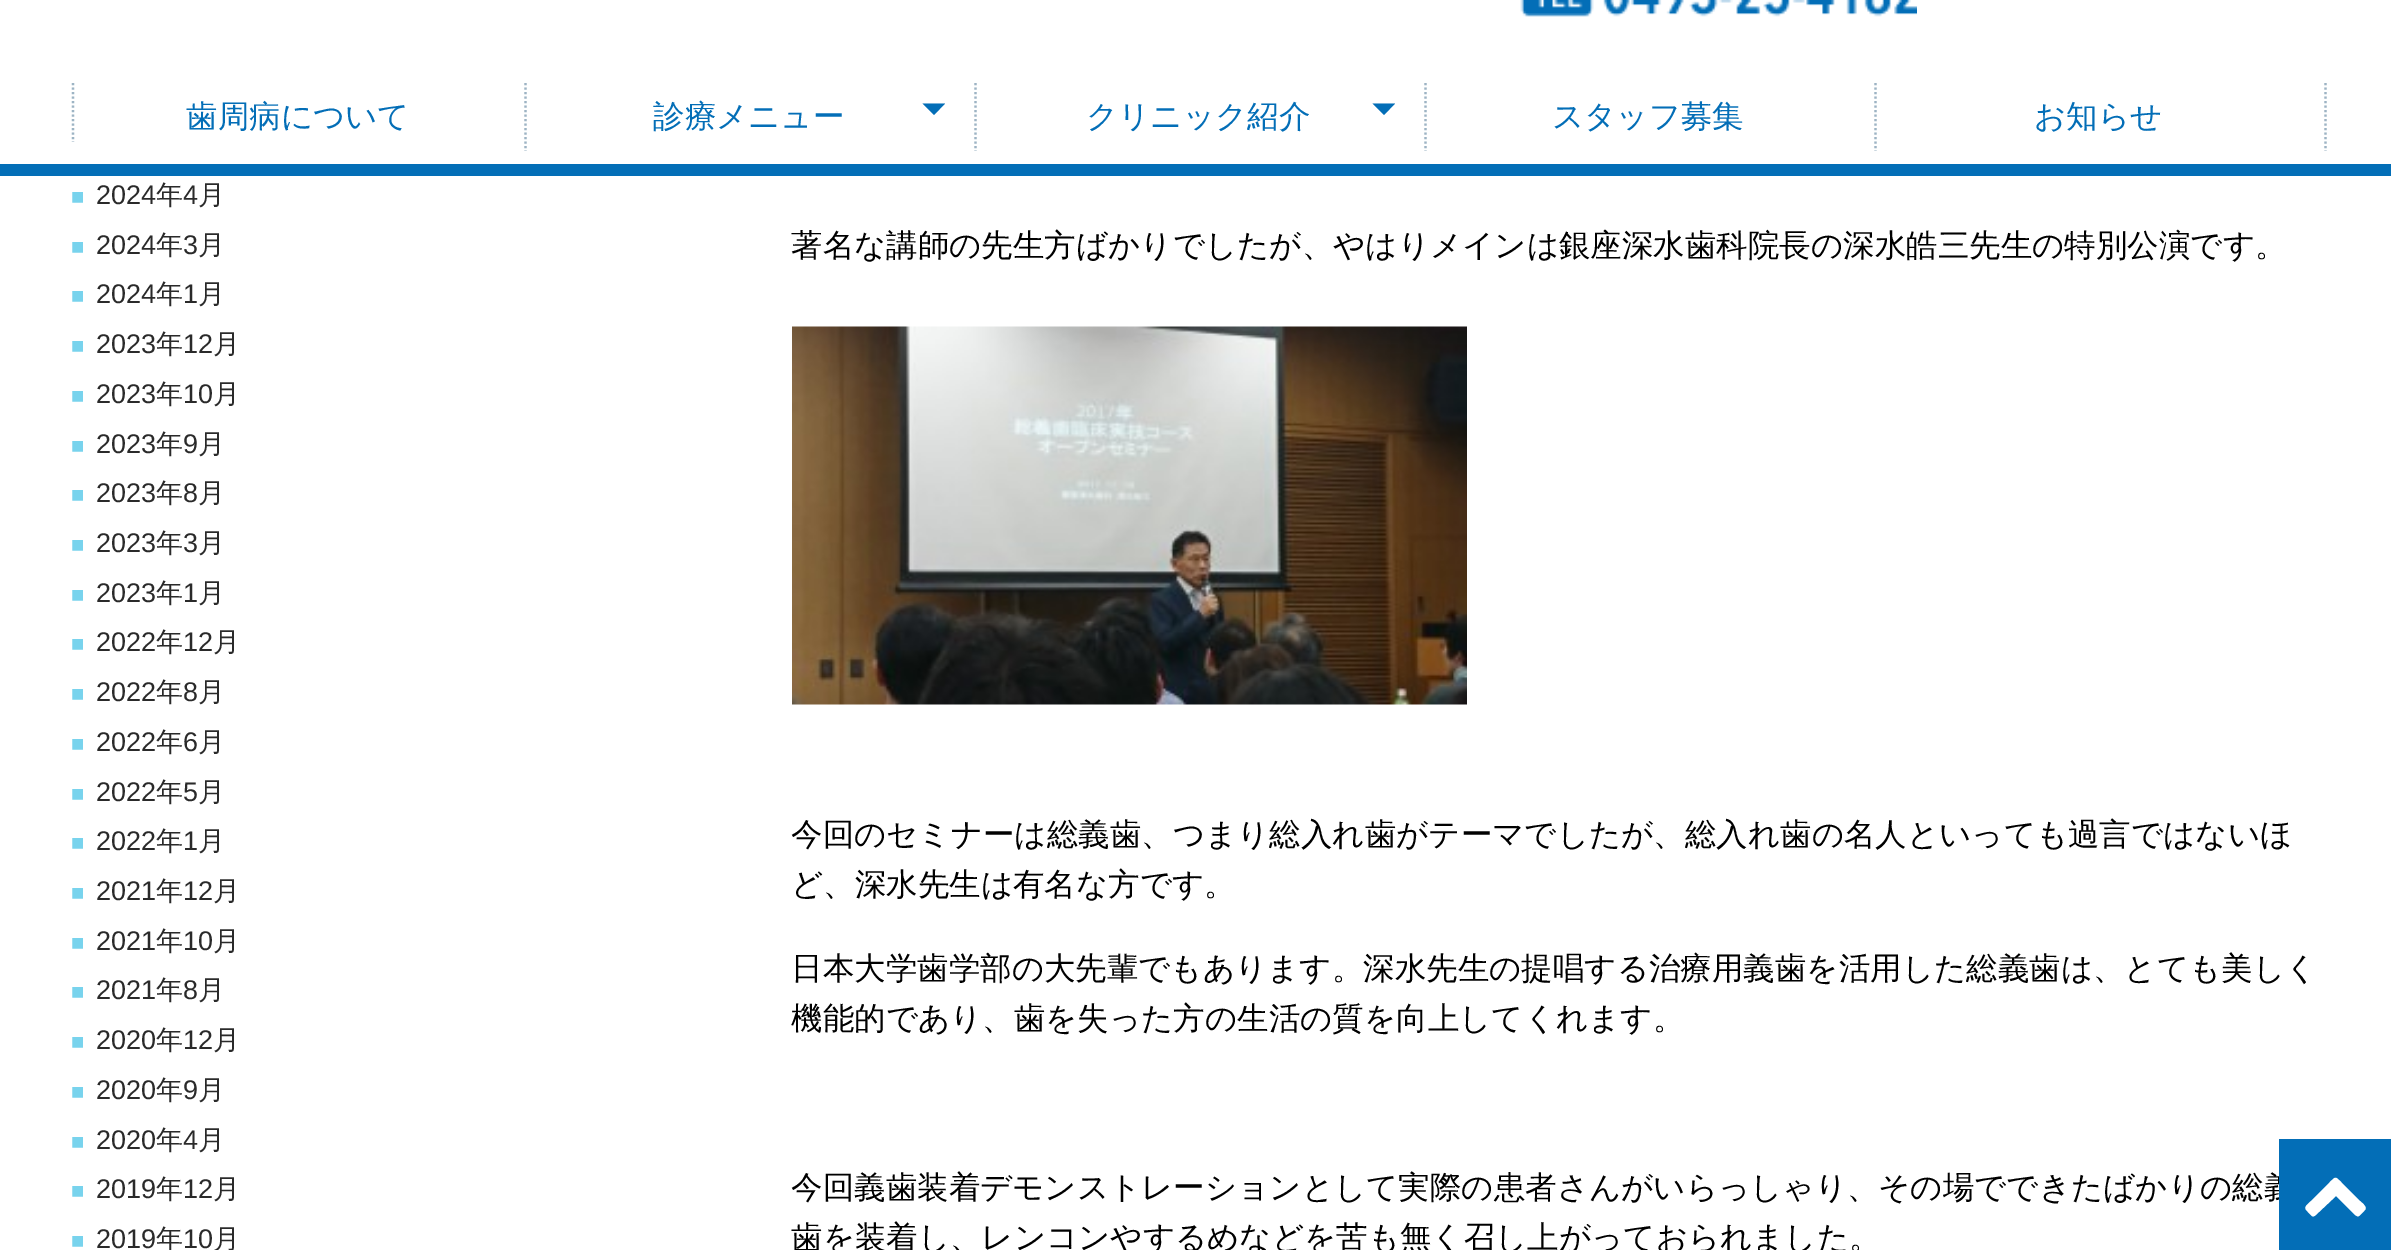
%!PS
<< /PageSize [2391 1250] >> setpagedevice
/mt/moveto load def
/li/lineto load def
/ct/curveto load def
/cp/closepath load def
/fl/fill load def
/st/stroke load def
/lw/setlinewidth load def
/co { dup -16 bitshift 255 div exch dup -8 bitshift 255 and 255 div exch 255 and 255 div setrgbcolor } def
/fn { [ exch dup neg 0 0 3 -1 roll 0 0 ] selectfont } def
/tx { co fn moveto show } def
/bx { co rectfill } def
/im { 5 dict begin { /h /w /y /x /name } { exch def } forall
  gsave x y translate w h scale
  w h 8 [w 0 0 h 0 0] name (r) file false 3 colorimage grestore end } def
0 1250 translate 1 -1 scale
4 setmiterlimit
0 0 2391 1250 16#FFFFFF bx
0 164 2391 12 16#036EB7 bx
(media/1.raw) 1520 0 397 17 im
16#9DB4C4 co
2.2 lw
[2.25 2.25] 0 setdash
73 83 mt 73 142 li st
525.5 83 mt 525.5 151 li st
975.5 83 mt 975.5 151 li st
16#036EB7 co
922.5 103.5 mt 945 103.5 li 934 115 li cp fl
16#9DB4C4 co
1425.5 83 mt 1425.5 151 li st
16#036EB7 co
1372.5 103.5 mt 1395 103.5 li 1384 115 li cp fl
16#9DB4C4 co
1875.5 83 mt 1875.5 151 li st
2325.5 83 mt 2325.5 151 li st
(media/2.raw) 792 326 675 379 im
(歯周病について) 186 127 /WenQuanYiZenHei-Medium 31.5 16#036EB7 tx
(診療メニュー) 653 127 /WenQuanYiZenHei-Medium 31.5 16#036EB7 tx
(クリニック紹介) 1086 127 /WenQuanYiZenHei-Medium 31.5 16#036EB7 tx
(スタッフ募集) 1552 127 /WenQuanYiZenHei-Medium 31.5 16#036EB7 tx
(お知らせ) 2034 127 /WenQuanYiZenHei-Medium 31.5 16#036EB7 tx
(■) 71 204 /LiberationSans-Regular 22 16#78D3ED tx
(2024) 96 204 /LiberationSans-Regular 27 16#2A2A2A tx
(年) 156 204 /WenQuanYiZenHei-Medium 27 16#2A2A2A tx
(4) 183 204 /LiberationSans-Regular 27 16#2A2A2A tx
(月) 198 204 /WenQuanYiZenHei-Medium 27 16#2A2A2A tx
(■) 71 254 /LiberationSans-Regular 22 16#78D3ED tx
(2024) 96 254 /LiberationSans-Regular 27 16#2A2A2A tx
(年) 156 254 /WenQuanYiZenHei-Medium 27 16#2A2A2A tx
(3) 183 254 /LiberationSans-Regular 27 16#2A2A2A tx
(月) 198 254 /WenQuanYiZenHei-Medium 27 16#2A2A2A tx
(■) 71 303 /LiberationSans-Regular 22 16#78D3ED tx
(2024) 96 303 /LiberationSans-Regular 27 16#2A2A2A tx
(年) 156 303 /WenQuanYiZenHei-Medium 27 16#2A2A2A tx
(1) 183 303 /LiberationSans-Regular 27 16#2A2A2A tx
(月) 198 303 /WenQuanYiZenHei-Medium 27 16#2A2A2A tx
(■) 71 353 /LiberationSans-Regular 22 16#78D3ED tx
(2023) 96 353 /LiberationSans-Regular 27 16#2A2A2A tx
(年) 156 353 /WenQuanYiZenHei-Medium 27 16#2A2A2A tx
(12) 183 353 /LiberationSans-Regular 27 16#2A2A2A tx
(月) 213 353 /WenQuanYiZenHei-Medium 27 16#2A2A2A tx
(■) 71 403 /LiberationSans-Regular 22 16#78D3ED tx
(2023) 96 403 /LiberationSans-Regular 27 16#2A2A2A tx
(年) 156 403 /WenQuanYiZenHei-Medium 27 16#2A2A2A tx
(10) 183 403 /LiberationSans-Regular 27 16#2A2A2A tx
(月) 213 403 /WenQuanYiZenHei-Medium 27 16#2A2A2A tx
(■) 71 453 /LiberationSans-Regular 22 16#78D3ED tx
(2023) 96 453 /LiberationSans-Regular 27 16#2A2A2A tx
(年) 156 453 /WenQuanYiZenHei-Medium 27 16#2A2A2A tx
(9) 183 453 /LiberationSans-Regular 27 16#2A2A2A tx
(月) 198 453 /WenQuanYiZenHei-Medium 27 16#2A2A2A tx
(■) 71 502 /LiberationSans-Regular 22 16#78D3ED tx
(2023) 96 502 /LiberationSans-Regular 27 16#2A2A2A tx
(年) 156 502 /WenQuanYiZenHei-Medium 27 16#2A2A2A tx
(8) 183 502 /LiberationSans-Regular 27 16#2A2A2A tx
(月) 198 502 /WenQuanYiZenHei-Medium 27 16#2A2A2A tx
(■) 71 552 /LiberationSans-Regular 22 16#78D3ED tx
(2023) 96 552 /LiberationSans-Regular 27 16#2A2A2A tx
(年) 156 552 /WenQuanYiZenHei-Medium 27 16#2A2A2A tx
(3) 183 552 /LiberationSans-Regular 27 16#2A2A2A tx
(月) 198 552 /WenQuanYiZenHei-Medium 27 16#2A2A2A tx
(■) 71 602 /LiberationSans-Regular 22 16#78D3ED tx
(2023) 96 602 /LiberationSans-Regular 27 16#2A2A2A tx
(年) 156 602 /WenQuanYiZenHei-Medium 27 16#2A2A2A tx
(1) 183 602 /LiberationSans-Regular 27 16#2A2A2A tx
(月) 198 602 /WenQuanYiZenHei-Medium 27 16#2A2A2A tx
(■) 71 651 /LiberationSans-Regular 22 16#78D3ED tx
(2022) 96 651 /LiberationSans-Regular 27 16#2A2A2A tx
(年) 156 651 /WenQuanYiZenHei-Medium 27 16#2A2A2A tx
(12) 183 651 /LiberationSans-Regular 27 16#2A2A2A tx
(月) 213 651 /WenQuanYiZenHei-Medium 27 16#2A2A2A tx
(■) 71 701 /LiberationSans-Regular 22 16#78D3ED tx
(2022) 96 701 /LiberationSans-Regular 27 16#2A2A2A tx
(年) 156 701 /WenQuanYiZenHei-Medium 27 16#2A2A2A tx
(8) 183 701 /LiberationSans-Regular 27 16#2A2A2A tx
(月) 198 701 /WenQuanYiZenHei-Medium 27 16#2A2A2A tx
(■) 71 751 /LiberationSans-Regular 22 16#78D3ED tx
(2022) 96 751 /LiberationSans-Regular 27 16#2A2A2A tx
(年) 156 751 /WenQuanYiZenHei-Medium 27 16#2A2A2A tx
(6) 183 751 /LiberationSans-Regular 27 16#2A2A2A tx
(月) 198 751 /WenQuanYiZenHei-Medium 27 16#2A2A2A tx
(■) 71 801 /LiberationSans-Regular 22 16#78D3ED tx
(2022) 96 801 /LiberationSans-Regular 27 16#2A2A2A tx
(年) 156 801 /WenQuanYiZenHei-Medium 27 16#2A2A2A tx
(5) 183 801 /LiberationSans-Regular 27 16#2A2A2A tx
(月) 198 801 /WenQuanYiZenHei-Medium 27 16#2A2A2A tx
(■) 71 850 /LiberationSans-Regular 22 16#78D3ED tx
(2022) 96 850 /LiberationSans-Regular 27 16#2A2A2A tx
(年) 156 850 /WenQuanYiZenHei-Medium 27 16#2A2A2A tx
(1) 183 850 /LiberationSans-Regular 27 16#2A2A2A tx
(月) 198 850 /WenQuanYiZenHei-Medium 27 16#2A2A2A tx
(■) 71 900 /LiberationSans-Regular 22 16#78D3ED tx
(2021) 96 900 /LiberationSans-Regular 27 16#2A2A2A tx
(年) 156 900 /WenQuanYiZenHei-Medium 27 16#2A2A2A tx
(12) 183 900 /LiberationSans-Regular 27 16#2A2A2A tx
(月) 213 900 /WenQuanYiZenHei-Medium 27 16#2A2A2A tx
(■) 71 950 /LiberationSans-Regular 22 16#78D3ED tx
(2021) 96 950 /LiberationSans-Regular 27 16#2A2A2A tx
(年) 156 950 /WenQuanYiZenHei-Medium 27 16#2A2A2A tx
(10) 183 950 /LiberationSans-Regular 27 16#2A2A2A tx
(月) 213 950 /WenQuanYiZenHei-Medium 27 16#2A2A2A tx
(■) 71 999 /LiberationSans-Regular 22 16#78D3ED tx
(2021) 96 999 /LiberationSans-Regular 27 16#2A2A2A tx
(年) 156 999 /WenQuanYiZenHei-Medium 27 16#2A2A2A tx
(8) 183 999 /LiberationSans-Regular 27 16#2A2A2A tx
(月) 198 999 /WenQuanYiZenHei-Medium 27 16#2A2A2A tx
(■) 71 1049 /LiberationSans-Regular 22 16#78D3ED tx
(2020) 96 1049 /LiberationSans-Regular 27 16#2A2A2A tx
(年) 156 1049 /WenQuanYiZenHei-Medium 27 16#2A2A2A tx
(12) 183 1049 /LiberationSans-Regular 27 16#2A2A2A tx
(月) 213 1049 /WenQuanYiZenHei-Medium 27 16#2A2A2A tx
(■) 71 1099 /LiberationSans-Regular 22 16#78D3ED tx
(2020) 96 1099 /LiberationSans-Regular 27 16#2A2A2A tx
(年) 156 1099 /WenQuanYiZenHei-Medium 27 16#2A2A2A tx
(9) 183 1099 /LiberationSans-Regular 27 16#2A2A2A tx
(月) 198 1099 /WenQuanYiZenHei-Medium 27 16#2A2A2A tx
(■) 71 1149 /LiberationSans-Regular 22 16#78D3ED tx
(2020) 96 1149 /LiberationSans-Regular 27 16#2A2A2A tx
(年) 156 1149 /WenQuanYiZenHei-Medium 27 16#2A2A2A tx
(4) 183 1149 /LiberationSans-Regular 27 16#2A2A2A tx
(月) 198 1149 /WenQuanYiZenHei-Medium 27 16#2A2A2A tx
(■) 71 1198 /LiberationSans-Regular 22 16#78D3ED tx
(2019) 96 1198 /LiberationSans-Regular 27 16#2A2A2A tx
(年) 156 1198 /WenQuanYiZenHei-Medium 27 16#2A2A2A tx
(12) 183 1198 /LiberationSans-Regular 27 16#2A2A2A tx
(月) 213 1198 /WenQuanYiZenHei-Medium 27 16#2A2A2A tx
(■) 71 1248 /LiberationSans-Regular 22 16#78D3ED tx
(2019) 96 1248 /LiberationSans-Regular 27 16#2A2A2A tx
(年) 156 1248 /WenQuanYiZenHei-Medium 27 16#2A2A2A tx
(10) 183 1248 /LiberationSans-Regular 27 16#2A2A2A tx
(月) 213 1248 /WenQuanYiZenHei-Medium 27 16#2A2A2A tx
(著名な講師の先生方ばかりでしたが、やはりメインは銀座深水歯科院長の深水皓三先生の特別公演です。) 791 256 /WenQuanYiZenHei-Medium 31.5 16#000000 tx
(今回のセミナーは総義歯、つまり総入れ歯がテーマでしたが、総入れ歯の名人といっても過言ではないほ) 791 845 /WenQuanYiZenHei-Medium 31.5 16#000000 tx
(ど、深水先生は有名な方です。) 791 895 /WenQuanYiZenHei-Medium 31.5 16#000000 tx
(日本大学歯学部の大先輩でもあります。深水先生の提唱する治療用義歯を活用した総義歯は、とても美しく) 791 979 /WenQuanYiZenHei-Medium 31.5 16#000000 tx
(機能的であり、歯を失った方の生活の質を向上してくれます。) 791 1029 /WenQuanYiZenHei-Medium 31.5 16#000000 tx
(今回義歯装着デモンストレーションとして実際の患者さんがいらっしゃり、その場でできたばかりの総義) 791 1198 /WenQuanYiZenHei-Medium 31.5 16#000000 tx
(歯を装着し、レンコンやするめなどを苦も無く召し上がっておられました。) 791 1248 /WenQuanYiZenHei-Medium 31.5 16#000000 tx
2279 1139 112 111 16#036EB7 bx
16#FFFFFF co
2365 1210 mt 2358 1217 2359 1219 2352 1212 ct 2336 1196 li 2319 1212 li 2312 1219 2313 1217 2307 1211 ct 2303 1207 2307 1205 2311 1201 ct 2329 1183 li 2336 1176 2335 1176 2342 1183 ct 2360 1201 li 2361 1202 2368 1207 2365 1210 ct cp fl
showpage
